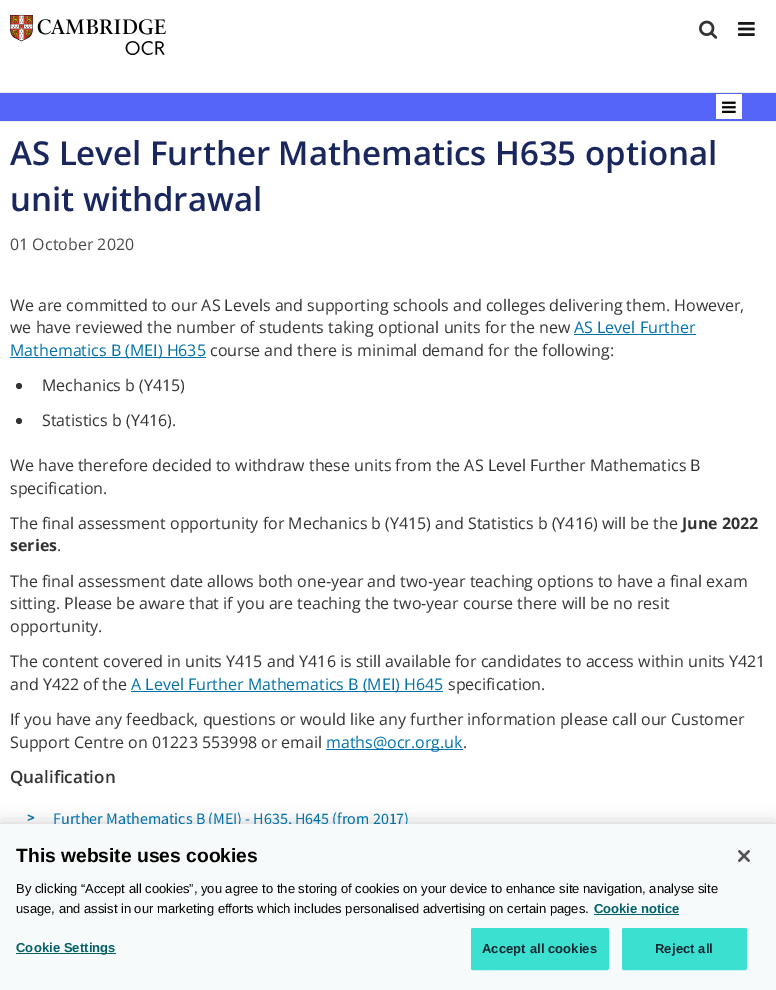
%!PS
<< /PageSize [776 990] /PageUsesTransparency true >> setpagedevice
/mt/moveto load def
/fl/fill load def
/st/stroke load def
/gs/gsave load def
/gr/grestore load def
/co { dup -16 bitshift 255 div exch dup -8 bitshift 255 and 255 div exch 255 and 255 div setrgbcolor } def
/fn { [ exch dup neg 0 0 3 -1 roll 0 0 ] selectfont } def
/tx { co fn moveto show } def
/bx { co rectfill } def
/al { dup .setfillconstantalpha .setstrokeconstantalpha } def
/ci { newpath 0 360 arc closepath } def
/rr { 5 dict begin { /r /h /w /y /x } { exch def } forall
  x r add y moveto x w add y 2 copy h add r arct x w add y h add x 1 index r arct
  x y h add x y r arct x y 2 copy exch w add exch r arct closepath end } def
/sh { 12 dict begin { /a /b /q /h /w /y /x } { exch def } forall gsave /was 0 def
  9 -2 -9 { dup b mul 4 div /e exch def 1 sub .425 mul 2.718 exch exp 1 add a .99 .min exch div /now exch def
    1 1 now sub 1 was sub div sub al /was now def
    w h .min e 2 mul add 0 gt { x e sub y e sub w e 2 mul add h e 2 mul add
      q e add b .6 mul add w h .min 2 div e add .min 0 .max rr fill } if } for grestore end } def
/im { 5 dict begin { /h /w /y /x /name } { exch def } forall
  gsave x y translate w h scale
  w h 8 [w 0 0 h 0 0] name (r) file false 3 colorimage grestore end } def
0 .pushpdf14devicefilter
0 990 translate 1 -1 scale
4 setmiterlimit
0 0 776 990 16#FFFFFF bx
(media/1.raw) 10 15 156 40 im
(media/2.raw) 699 20 19 19 im
(media/3.raw) 738 22 17 14 im
0 93 776 28 16#5465F8 bx
0 92 776 1 16#EAEAEA bx
0 121 776 1 16#EAEAEA bx
716 94 26 25 16#FFFFFF bx
(media/4.raw) 722 101 14 12 im
574 334 122 1 16#0071A9 bx
10 357 196 1 16#0071A9 bx
16#333333 co
19 386 3 ci fl
19 421 3 ci fl
131 691 312 1 16#0071A9 bx
326 749 137 1 16#0071A9 bx
(media/5.raw) 27 814 8 7 im
16#000000 co
0 824 776 166 0 9 .2 sh
(AS Level Further Mathematics H635 optional) 10 165 /OpenSans-SemiBold 33 16#19275E tx
(unit withdrawal) 10 211 /OpenSans-SemiBold 33 16#19275E tx
(01 October 2020) 10 250 /OpenSans-Regular 16 16#4A4A4A tx
(We are committed to our AS Levels and supporting schools and colleges delivering them. However,) 10 311 /OpenSans-Regular 16 16#333333 tx
(we have reviewed the number of students taking optional units for the new) 10 333 /OpenSans-Regular 16 16#333333 tx
(AS Level Further) 574 333 /OpenSans-Regular 16 16#0071A9 tx
(Mathematics B \(MEI\) H635) 10 356 /OpenSans-Regular 16 16#0071A9 tx
(course and there is minimal demand for the following:) 210 356 /OpenSans-Regular 16 16#333333 tx
(Mechanics b \(Y415\)) 42 391 /OpenSans-Regular 16 16#333333 tx
(Statistics b \(Y416\).) 42 426 /OpenSans-Regular 16 16#333333 tx
(We have therefore decided to withdraw these units from the AS Level Further Mathematics B) 10 471 /OpenSans-Regular 16 16#333333 tx
(specification.) 10 494 /OpenSans-Regular 16 16#333333 tx
(The final assessment opportunity for Mechanics b \(Y415\) and Statistics b \(Y416\) will be the) 10 529 /OpenSans-Regular 16 16#333333 tx
(June 2022) 682 529 /OpenSans-Bold 16 16#333333 tx
(series) 10 551 /OpenSans-Bold 16 16#333333 tx
(.) 57 551 /OpenSans-Regular 16 16#333333 tx
(The final assessment date allows both one-year and two-year teaching options to have a final exam) 10 587 /OpenSans-Regular 16 16#333333 tx
(sitting. Please be aware that if you are teaching the two-year course there will be no resit) 10 609 /OpenSans-Regular 16 16#333333 tx
(opportunity.) 10 632 /OpenSans-Regular 16 16#333333 tx
(The content covered in units Y415 and Y416 is still available for candidates to access within units Y421) 10 667 /OpenSans-Regular 16 16#333333 tx
(and Y422 of the) 10 690 /OpenSans-Regular 16 16#333333 tx
(A Level Further Mathematics B \(MEI\) H645) 131 690 /OpenSans-Regular 16 16#0071A9 tx
(specification.) 448 690 /OpenSans-Regular 16 16#333333 tx
(If you have any feedback, questions or would like any further information please call our Customer) 10 725 /OpenSans-Regular 16 16#333333 tx
(Support Centre on 01223 553998 or email) 10 748 /OpenSans-Regular 16 16#333333 tx
(maths@ocr.org.uk) 326 748 /OpenSans-Regular 16 16#0071A9 tx
(.) 463 748 /OpenSans-Regular 16 16#333333 tx
(Qualification) 10 783 /OpenSans-SemiBold 17 16#333333 tx
(Further Mathematics B \(MEI\) - H635, H645 \(from 2017\)) 53 824 /SourceSansPro-Regular 16 16#0071A9 tx
0 824 776 166 16#F7FAFA bx
(This website uses cookies) 16 862 /LiberationSans-Bold 19.25 16#000000 tx
(By clicking “Accept all cookies”, you agree to the storing of cookies on your device to enhance site navigation, analyse site) 16 893 /LiberationSans-Regular 13 16#000000 tx
(usage, and assist in our marketing efforts which includes personalised advertising on certain pages.) 16 913 /LiberationSans-Regular 13 16#000000 tx
(Cookie notice) 594 913 /LiberationSans-Bold 13 16#036268 tx
594 914 85 1 16#036268 bx
16 953 100 1 16#036268 bx
16 952 mt .1 0 (Cookie Settings) ashow
16#3BE0D0 co
471.5 928.5 137 41 1.5 rr gs fl gr
st
16#112730 co
482 953 mt .1 0 (Accept all cookies) ashow
16#3BE0D0 co
622.5 928.5 124 41 1.5 rr gs fl gr
st
16#112730 co
655 953 mt .1 0 (Reject all) ashow
(media/6.raw) 738 850 12 12 im
.poppdf14devicefilter showpage
